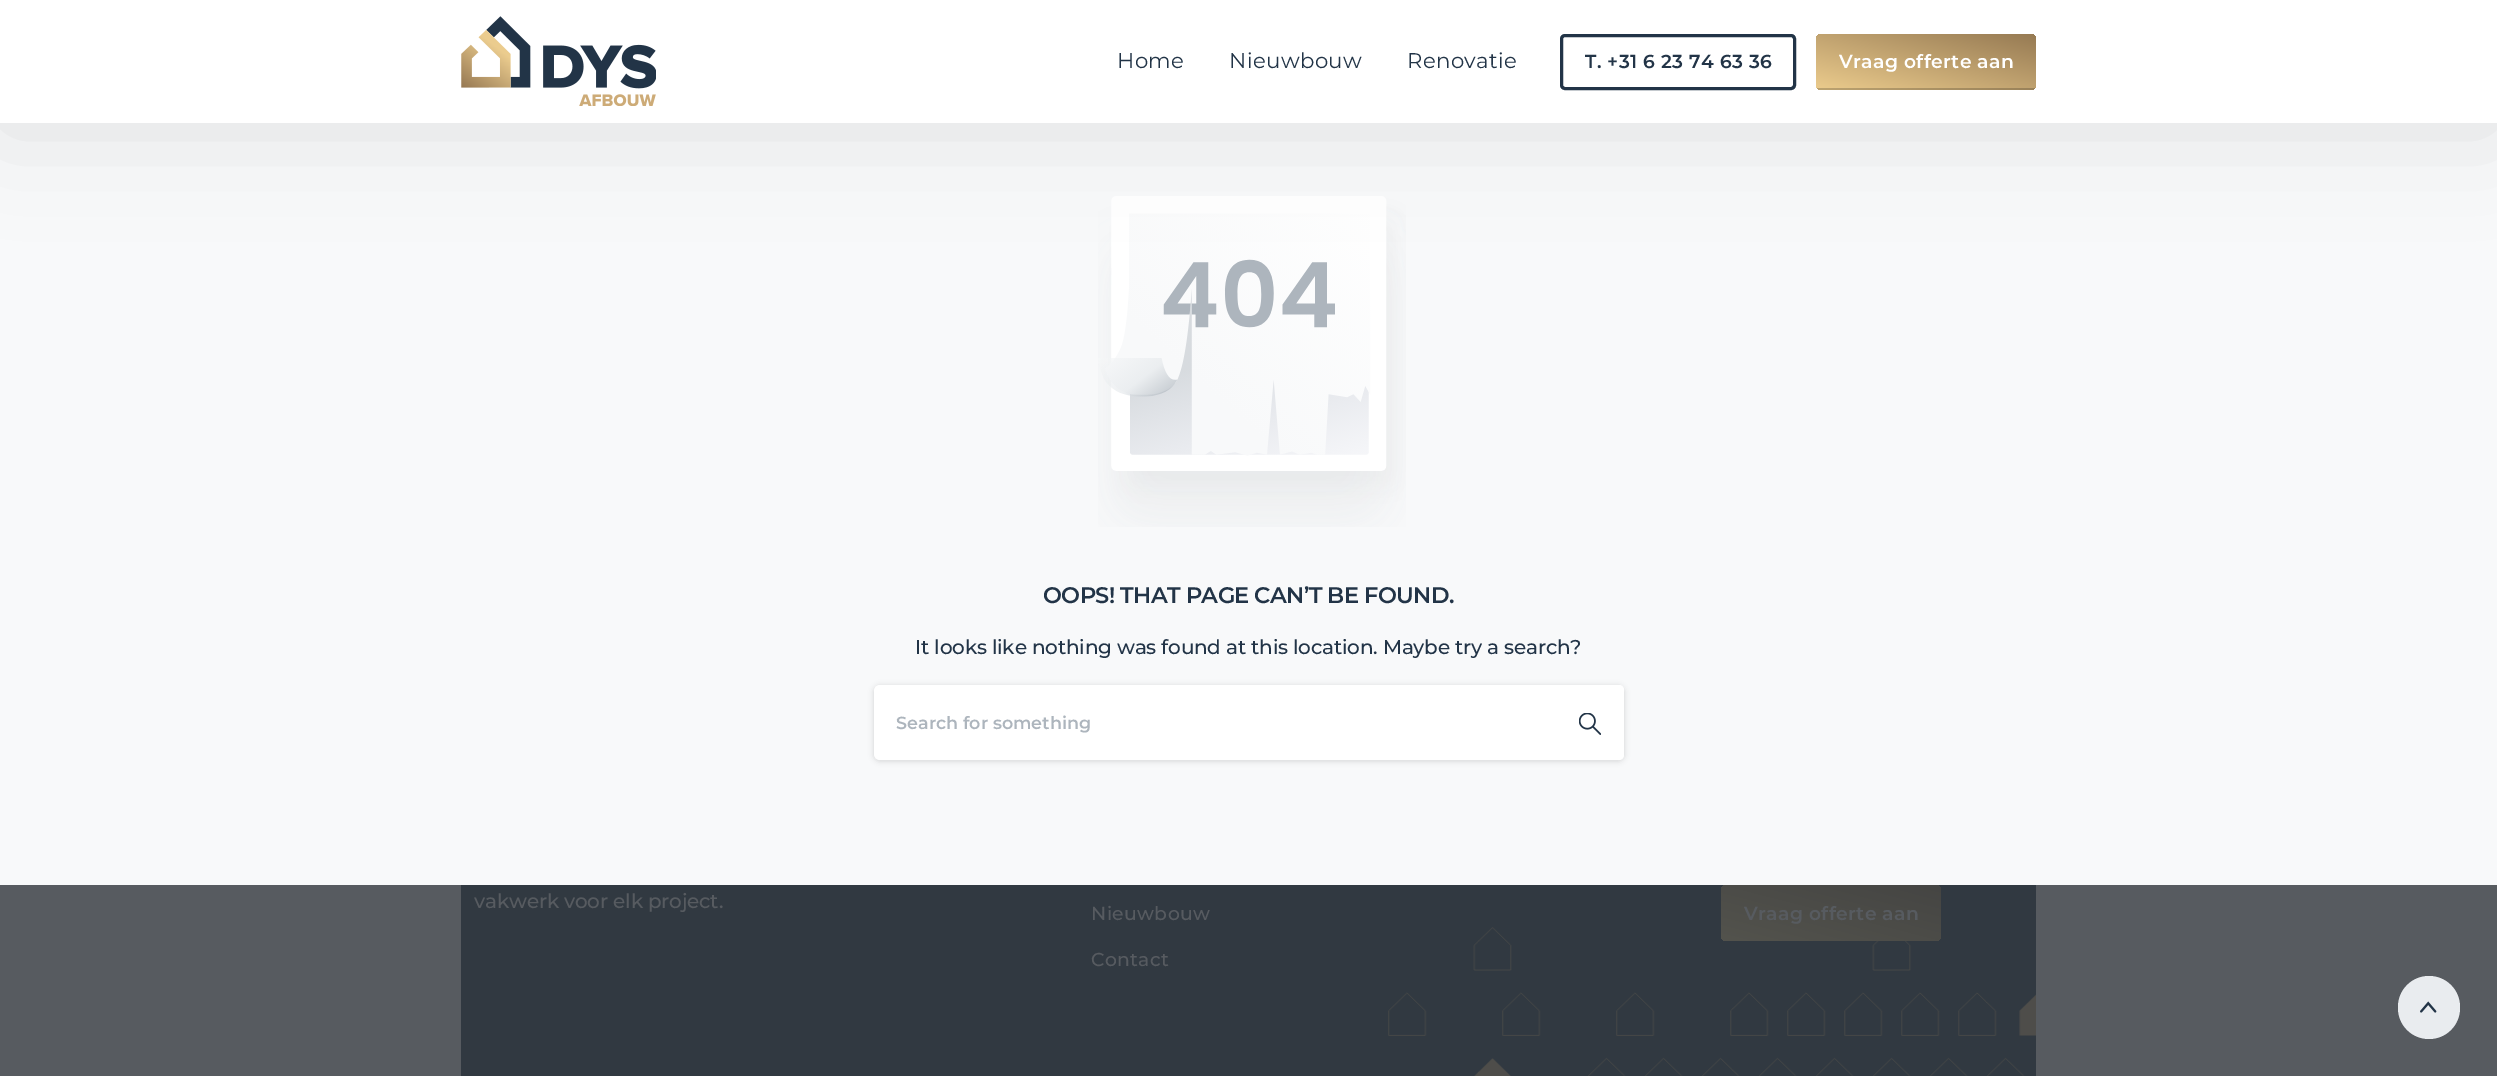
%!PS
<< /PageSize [2497 1076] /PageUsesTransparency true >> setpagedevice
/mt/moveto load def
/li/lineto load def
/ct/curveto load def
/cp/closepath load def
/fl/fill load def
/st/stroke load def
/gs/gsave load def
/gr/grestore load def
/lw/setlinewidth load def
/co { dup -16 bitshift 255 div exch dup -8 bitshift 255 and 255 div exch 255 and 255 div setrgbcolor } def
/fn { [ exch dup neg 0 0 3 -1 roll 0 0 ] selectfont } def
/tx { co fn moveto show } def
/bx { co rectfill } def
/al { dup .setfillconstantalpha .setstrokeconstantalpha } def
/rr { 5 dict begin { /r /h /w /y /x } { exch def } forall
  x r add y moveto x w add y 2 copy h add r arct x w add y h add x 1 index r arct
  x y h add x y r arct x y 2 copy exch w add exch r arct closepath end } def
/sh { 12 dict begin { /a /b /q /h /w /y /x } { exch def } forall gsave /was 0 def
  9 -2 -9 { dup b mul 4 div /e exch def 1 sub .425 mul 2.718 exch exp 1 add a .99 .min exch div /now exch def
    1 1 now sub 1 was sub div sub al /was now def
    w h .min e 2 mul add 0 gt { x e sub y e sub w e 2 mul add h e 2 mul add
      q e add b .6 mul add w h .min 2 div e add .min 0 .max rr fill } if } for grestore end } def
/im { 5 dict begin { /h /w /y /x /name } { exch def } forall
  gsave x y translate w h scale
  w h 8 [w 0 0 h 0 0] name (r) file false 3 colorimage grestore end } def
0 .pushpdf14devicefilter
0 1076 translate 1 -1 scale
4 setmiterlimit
0 0 2497 1076 16#575B60 bx
0 123 2497 762 16#F8F9FA bx
(media/2.raw) 1098 196 308 331 im
16#000000 co
0 6 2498 123 0 50 .1 sh
0 0 2497 123 16#FFFFFF bx
(media/1.raw) 461 16 195 90 im
16#223447 co
3 lw
1561.5 35.5 233 53 3.5 rr st
gs 1816 34 220 56 5 rr clip newpath
<< /ShadingType 2 /ColorSpace /DeviceRGB /Coords [1913 115 1940 9] /Extend [true true] /Function << /FunctionType 2 /Domain [0 1] /C0 [.925 .8 .553] /C1 [.588 .478 .325] /N 1 >> >> shfill gr
gs
1816 34 220 56 5 rr clip newpath
0.2 al
16#000000 co
1816 88 220 3 1.5 rr fl
gr
16#000000 co
874 686 750 75 6 3 .15 sh
16#FFFFFF co
880 685 mt 1556 685 li 1556 760 li 880 760 li 876.5 760 874 757.5 874 754 ct 874 691 li 874 687.5 876.5 685 880 685 ct cp fl
1556 685 mt 1619 685 li 1622 685 1624 687 1624 690 ct 1624 755 li 1624 758 1622 760 1619 760 ct 1556 760 li cp fl
(media/3.raw) 1579 713 22 22 im
461 885 1575 191 16#313941 bx
(media/4.raw) 1388 927 648 149 im
gs 1721 885 220 56 5 rr clip newpath
<< /ShadingType 2 /ColorSpace /DeviceRGB /Coords [1818 966 1845 860] /Extend [true true] /Function << /FunctionType 2 /Domain [0 1] /C0 [.325 .325 .302] /C1 [.271 .271 .263] /N 1 >> >> shfill gr
16#E9ECEF co
2398 976 62 63 31 rr fl
(media/5.raw) 2420 1001 17 12 im
/Montserrat-Regular 21.25 fn
16#223447 co
1117 68 mt .4 0 (Home) ashow
1229 68 mt .4 0 (Nieuwbouw) ashow
1407 68 mt .4 0 (Renovatie) ashow
/Montserrat-SemiBold 18.75 fn
1585 68 mt .4 0 (T. +31 6 23 74 63 36) ashow
16#FFFFFF co
1839 68 mt .4 0 (Vraag offerte aan) ashow
/Montserrat-SemiBold 22.5 fn
16#223447 co
1043 603 mt -.6 0 (OOPS! THAT PAGE CAN’T BE FOUND.) ashow
/Montserrat-Medium 20 fn
915 654 mt -.2 0 (It looks like nothing was found at this location. Maybe try a search?) ashow
(Search for something) 896 729 /Montserrat-SemiBold 17.5 16#ADB5BD tx
/Montserrat-Medium 20 fn
16#575B60 co
474 908 mt -.2 0 (vakwerk voor elk project.) ashow
/Montserrat-Medium 18.75 fn
1091 920 mt .4 0 (Nieuwbouw) ashow
1091 966 mt .4 0 (Contact) ashow
/Montserrat-SemiBold 18.75 fn
1744 920 mt .4 0 (Vraag offerte aan) ashow
.poppdf14devicefilter showpage
